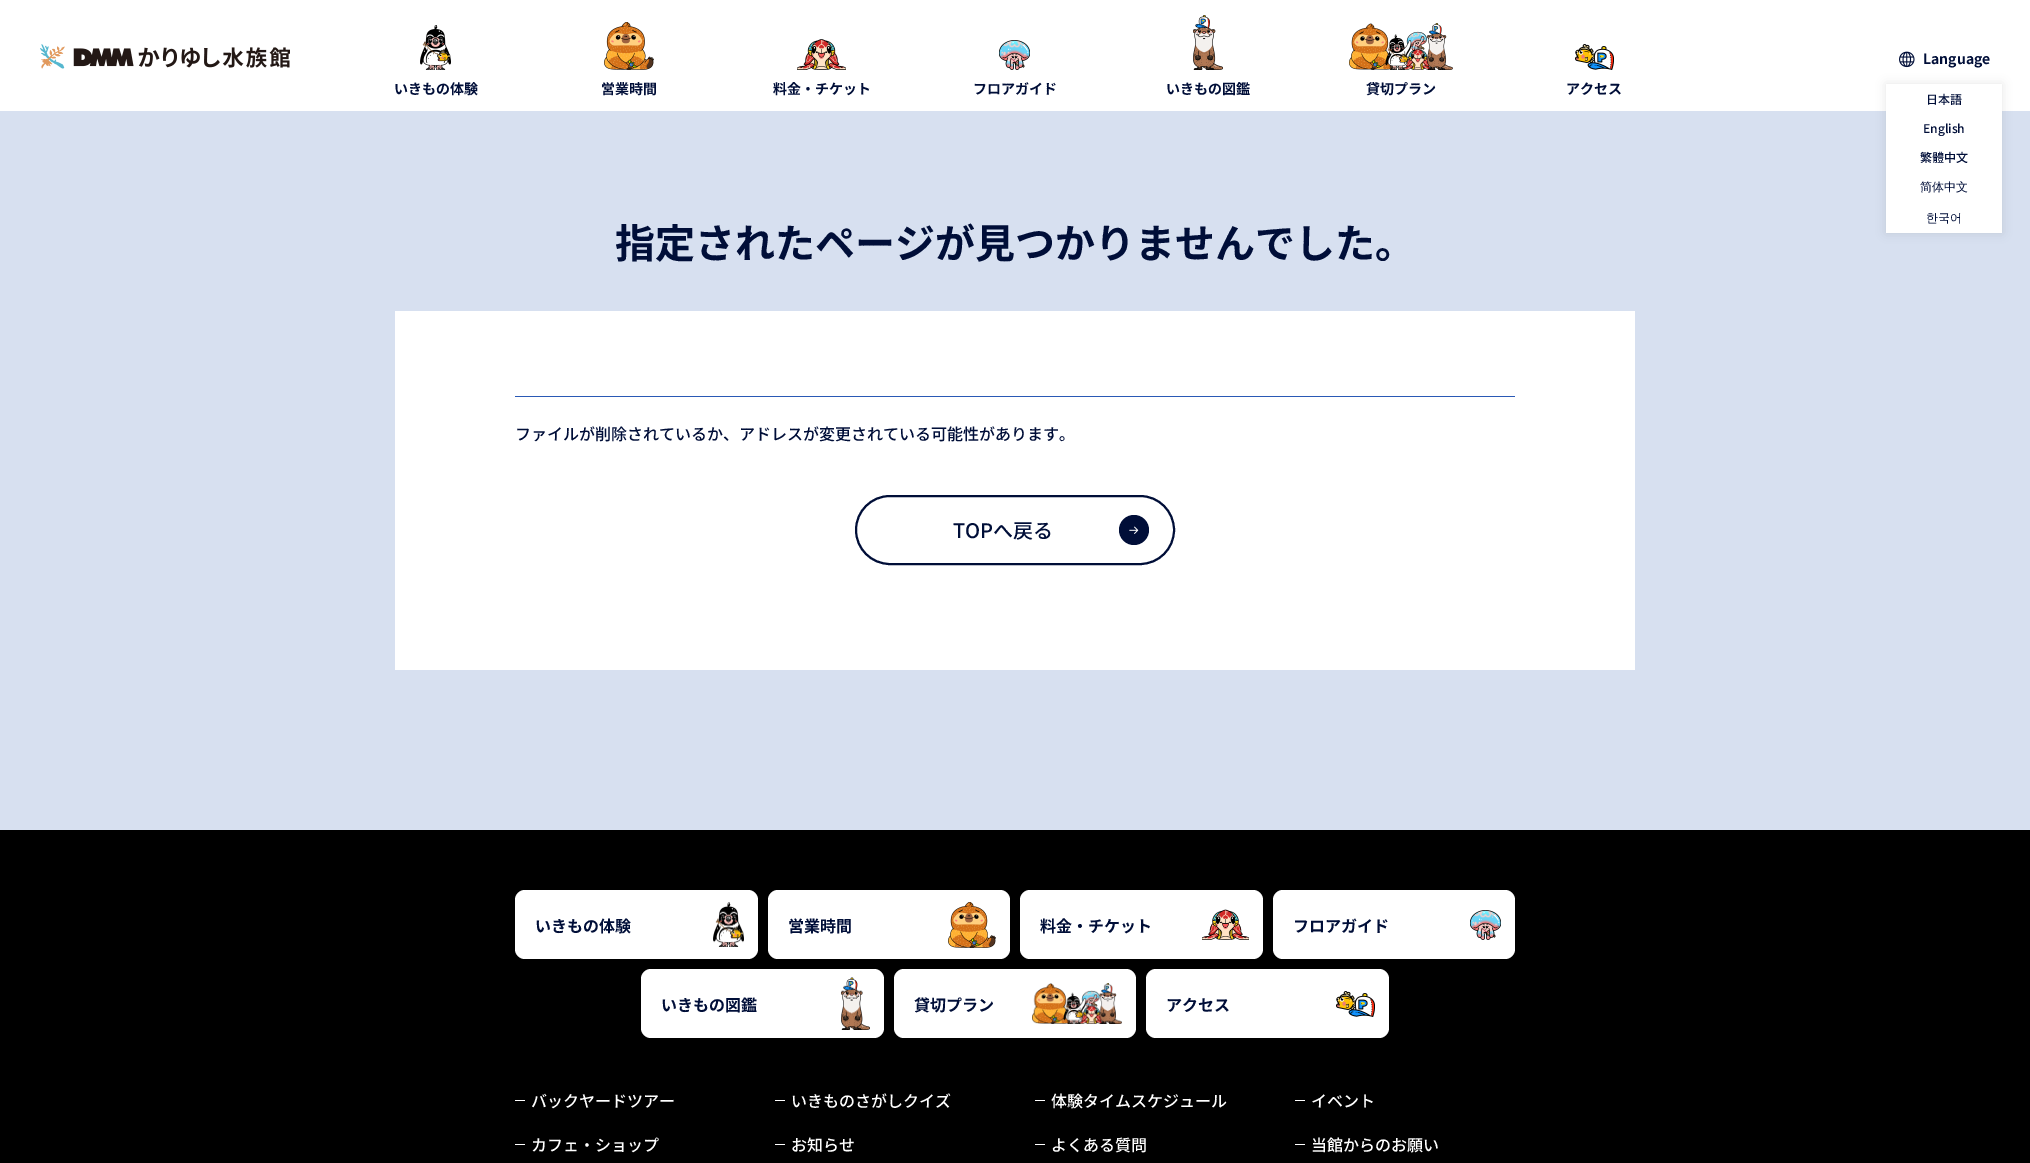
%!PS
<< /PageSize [2030 1163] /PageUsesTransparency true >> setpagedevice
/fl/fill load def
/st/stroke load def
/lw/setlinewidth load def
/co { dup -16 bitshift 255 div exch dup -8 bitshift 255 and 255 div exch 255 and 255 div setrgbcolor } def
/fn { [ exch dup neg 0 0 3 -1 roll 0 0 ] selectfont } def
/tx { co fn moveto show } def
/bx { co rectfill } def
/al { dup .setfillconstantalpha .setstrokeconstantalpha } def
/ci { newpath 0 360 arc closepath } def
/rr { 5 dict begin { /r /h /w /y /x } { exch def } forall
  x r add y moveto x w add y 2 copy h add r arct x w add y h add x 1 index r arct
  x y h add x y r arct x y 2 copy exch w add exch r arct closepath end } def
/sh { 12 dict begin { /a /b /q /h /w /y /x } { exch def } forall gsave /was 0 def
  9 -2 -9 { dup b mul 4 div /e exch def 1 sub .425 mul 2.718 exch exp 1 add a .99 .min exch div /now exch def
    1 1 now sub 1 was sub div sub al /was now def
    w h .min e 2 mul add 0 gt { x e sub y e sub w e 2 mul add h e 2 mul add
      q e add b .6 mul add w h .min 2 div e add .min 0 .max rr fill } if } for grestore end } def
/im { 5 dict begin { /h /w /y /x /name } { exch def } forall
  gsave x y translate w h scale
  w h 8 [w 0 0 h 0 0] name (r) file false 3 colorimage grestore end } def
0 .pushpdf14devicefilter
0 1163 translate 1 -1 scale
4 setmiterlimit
0 0 2030 1163 16#D7E0F0 bx
0 0 2030 111 16#FFFFFF bx
(media/1.raw) 40 44 250 25 im
(media/2.raw) 420 25 31 45 im
(media/3.raw) 604 22 50 48 im
(media/4.raw) 797 39 49 31 im
(media/5.raw) 999 40 31 30 im
(media/6.raw) 1193 15 30 55 im
(media/7.raw) 1349 23 104 47 im
(media/8.raw) 1575 44 39 26 im
(media/9.raw) 1899 51 16 17 im
16#000000 co
1886 84 116 149 0 5 .1 sh
1886 84 116 149 16#FFFFFF bx
395 311 1240 359 16#FFFFFF bx
515 396 1000 1 16#2A59B5 bx
16#000E38 co
2 lw
856 496 318 68 34 rr st
1134 530 15 ci fl
(media/10.raw) 1129 526 10 8 im
0 830 2030 333 16#000000 bx
16#FFFFFF co
515 890 243 69 10 rr fl
(media/11.raw) 713 902 31 45 im
768 890 242 69 10 rr fl
(media/12.raw) 948 902 48 46 im
1020 890 243 69 10 rr fl
(media/13.raw) 1202 909 47 31 im
1273 890 242 69 10 rr fl
(media/5.raw) 1470 910 31 30 im
641 969 243 69 10 rr fl
(media/14.raw) 841 977 29 53 im
894 969 242 69 10 rr fl
(media/15.raw) 1032 983 90 41 im
1146 969 243 69 10 rr fl
(media/8.raw) 1336 991 39 26 im
515 1100 10 1 16#FFFFFF bx
775 1100 10 1 16#FFFFFF bx
1035 1100 10 1 16#FFFFFF bx
1295 1100 10 1 16#FFFFFF bx
515 1144 10 1 16#FFFFFF bx
775 1144 10 1 16#FFFFFF bx
1035 1144 10 1 16#FFFFFF bx
1295 1144 10 1 16#FFFFFF bx
(いきもの体験) 394 94 /NotoSansJP-Bold 14 16#000E38 tx
(営業時間) 601 94 /NotoSansJP-Bold 14 16#000E38 tx
(料金・チケット) 773 94 /NotoSansJP-Bold 14 16#000E38 tx
(フロアガイド) 973 94 /NotoSansJP-Bold 14 16#000E38 tx
(いきもの図鑑) 1166 94 /NotoSansJP-Bold 14 16#000E38 tx
(貸切プラン) 1366 94 /NotoSansJP-Bold 14 16#000E38 tx
(アクセス) 1566 94 /NotoSansJP-Bold 14 16#000E38 tx
(Language) 1923 64 /NotoSansJP-Bold 14 16#000E38 tx
(日本語) 1926 104 /NotoSansJP-Medium 12 16#000E38 tx
(English) 1923 133 /NotoSansJP-Medium 12 16#000E38 tx
(繁體中文) 1920 162 /NotoSansJP-Medium 12 16#000E38 tx
(简体中文) 1920 191 /WenQuanYiZenHei-Medium 12 16#000E38 tx
(한국어) 1926 222 /WenQuanYiZenHei-Medium 12 16#000E38 tx
(指定されたページが見つかりませんでした。) 615 258 /NotoSansJP-Bold 40 16#000E38 tx
(ファイルが削除されているか、アドレスが変更されている可能性があります。) 515 440 /NotoSansJP-Medium 16 16#000E38 tx
(TOPへ戻る) 953 538 /NotoSansJP-Medium 20 16#000E38 tx
(いきもの体験) 535 932 /NotoSansJP-Bold 16 16#000E38 tx
(営業時間) 788 932 /NotoSansJP-Bold 16 16#000E38 tx
(料金・チケット) 1040 932 /NotoSansJP-Bold 16 16#000E38 tx
(フロアガイド) 1293 932 /NotoSansJP-Bold 16 16#000E38 tx
(いきもの図鑑) 661 1011 /NotoSansJP-Bold 16 16#000E38 tx
(貸切プラン) 914 1011 /NotoSansJP-Bold 16 16#000E38 tx
(アクセス) 1166 1011 /NotoSansJP-Bold 16 16#000E38 tx
(バックヤードツアー) 531 1107 /NotoSansJP-Medium 16 16#FFFFFF tx
(いきものさがしクイズ) 791 1107 /NotoSansJP-Medium 16 16#FFFFFF tx
(体験タイムスケジュール) 1051 1107 /NotoSansJP-Medium 16 16#FFFFFF tx
(イベント) 1311 1107 /NotoSansJP-Medium 16 16#FFFFFF tx
(カフェ・ショップ) 531 1151 /NotoSansJP-Medium 16 16#FFFFFF tx
(お知らせ) 791 1151 /NotoSansJP-Medium 16 16#FFFFFF tx
(よくある質問) 1051 1151 /NotoSansJP-Medium 16 16#FFFFFF tx
(当館からのお願い) 1311 1151 /NotoSansJP-Medium 16 16#FFFFFF tx
.poppdf14devicefilter showpage
